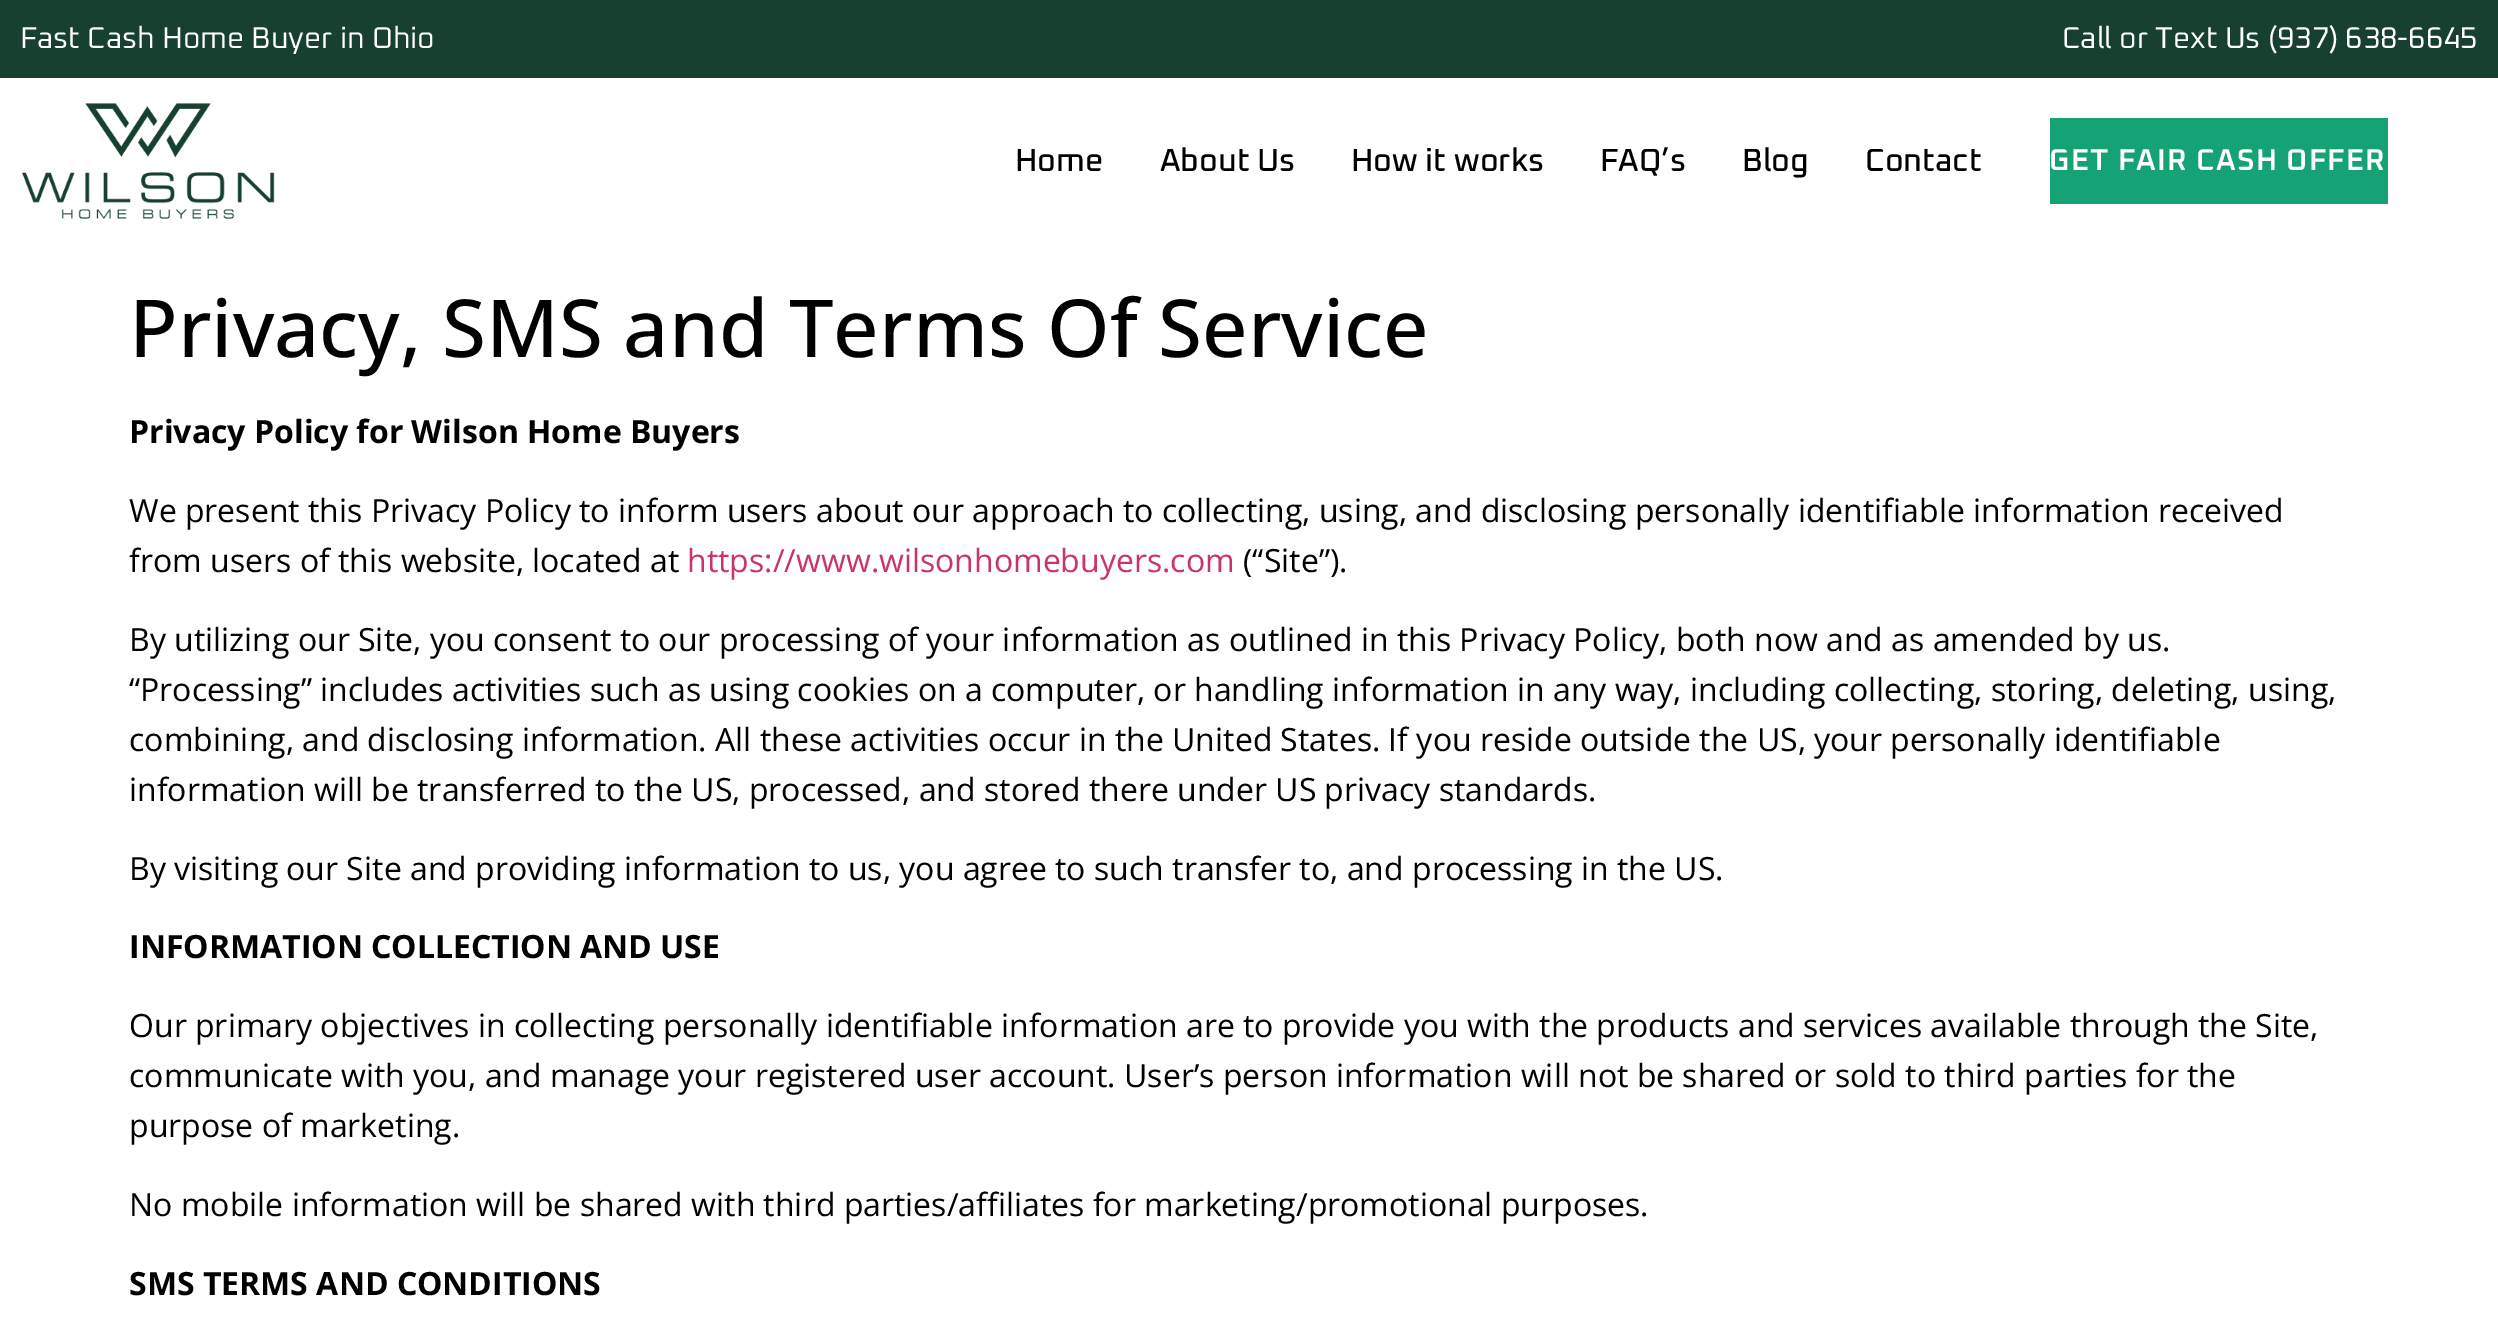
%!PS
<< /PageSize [2498 1341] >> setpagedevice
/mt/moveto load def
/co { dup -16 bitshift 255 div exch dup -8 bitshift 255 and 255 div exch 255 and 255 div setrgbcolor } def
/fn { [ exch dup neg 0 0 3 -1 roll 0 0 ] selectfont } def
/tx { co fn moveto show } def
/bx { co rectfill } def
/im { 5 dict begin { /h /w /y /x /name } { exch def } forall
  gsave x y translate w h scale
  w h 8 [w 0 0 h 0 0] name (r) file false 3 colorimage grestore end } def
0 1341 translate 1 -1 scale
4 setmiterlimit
0 0 2498 1341 16#FFFFFF bx
0 0 2498 78 16#17412E bx
(media/1.raw) 22 103 253 116 im
2050 118 338 86 16#15A275 bx
(Fast Cash Home Buyer in Ohio) 20 48 /Oxanium-Regular 30 16#FFFFFF tx
(Call or Text Us \(937\) 638-6645) 2062 48 /Oxanium-Regular 30 16#FFFFFF tx
(Home) 1015 171 /Oxanium-Medium 32 16#000000 tx
(About Us) 1160 171 /Oxanium-Medium 32 16#000000 tx
(How it works) 1351 171 /Oxanium-Medium 32 16#000000 tx
(FAQ’s) 1600 171 /Oxanium-Medium 32 16#000000 tx
(Blog) 1742 171 /Oxanium-Medium 32 16#000000 tx
(Contact) 1865 171 /Oxanium-Medium 32 16#000000 tx
/Oxanium-SemiBold 30 fn
16#FFFFFF co
2049 170 mt 1.25 0 (GET FAIR CASH OFFER) ashow
(Privacy, SMS and Terms Of Service) 129 357 /OpenSans-Medium 80 16#000000 tx
(Privacy Policy for Wilson Home Buyers) 129 443 /OpenSans-Bold 32 16#000000 tx
(We present this Privacy Policy to inform users about our approach to collecting, using, and disclosing personally identifiable information received) 129 522 /OpenSans-Regular 32 16#000000 tx
(from users of this website, located at) 129 572 /OpenSans-Regular 32 16#000000 tx
(https://www.wilsonhomebuyers.com) 687 572 /OpenSans-Regular 32 16#CC3366 tx
(\(“Site”\).) 1243 572 /OpenSans-Regular 32 16#000000 tx
(By utilizing our Site, you consent to our processing of your information as outlined in this Privacy Policy, both now and as amended by us.) 129 651 /OpenSans-Regular 32 16#000000 tx
(“Processing” includes activities such as using cookies on a computer, or handling information in any way, including collecting, storing, deleting, using,) 129 701 /OpenSans-Regular 32 16#000000 tx
(combining, and disclosing information. All these activities occur in the United States. If you reside outside the US, your personally identifiable) 129 751 /OpenSans-Regular 32 16#000000 tx
(information will be transferred to the US, processed, and stored there under US privacy standards.) 129 801 /OpenSans-Regular 32 16#000000 tx
(By visiting our Site and providing information to us, you agree to such transfer to, and processing in the US.) 129 880 /OpenSans-Regular 32 16#000000 tx
(INFORMATION COLLECTION AND USE) 129 958 /OpenSans-Bold 32 16#000000 tx
(Our primary objectives in collecting personally identifiable information are to provide you with the products and services available through the Site,) 129 1037 /OpenSans-Regular 32 16#000000 tx
(communicate with you, and manage your registered user account. User’s person information will not be shared or sold to third parties for the) 129 1087 /OpenSans-Regular 32 16#000000 tx
(purpose of marketing.) 129 1137 /OpenSans-Regular 32 16#000000 tx
(No mobile information will be shared with third parties/affiliates for marketing/promotional purposes.) 129 1216 /OpenSans-Regular 32 16#000000 tx
(SMS TERMS AND CONDITIONS) 129 1295 /OpenSans-Bold 32 16#000000 tx
showpage
